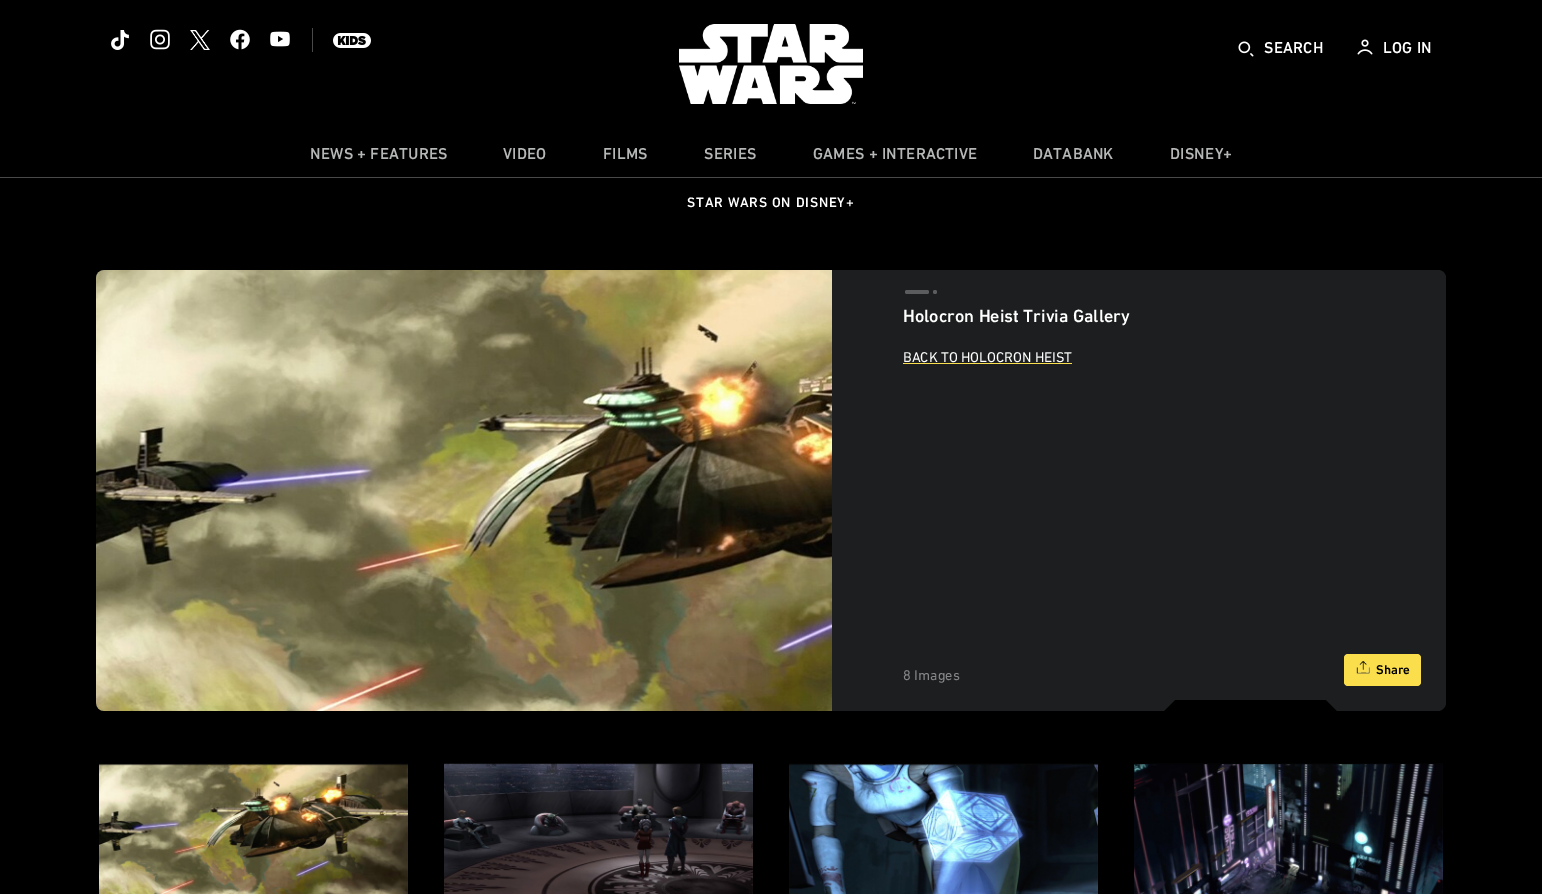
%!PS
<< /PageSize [1542 894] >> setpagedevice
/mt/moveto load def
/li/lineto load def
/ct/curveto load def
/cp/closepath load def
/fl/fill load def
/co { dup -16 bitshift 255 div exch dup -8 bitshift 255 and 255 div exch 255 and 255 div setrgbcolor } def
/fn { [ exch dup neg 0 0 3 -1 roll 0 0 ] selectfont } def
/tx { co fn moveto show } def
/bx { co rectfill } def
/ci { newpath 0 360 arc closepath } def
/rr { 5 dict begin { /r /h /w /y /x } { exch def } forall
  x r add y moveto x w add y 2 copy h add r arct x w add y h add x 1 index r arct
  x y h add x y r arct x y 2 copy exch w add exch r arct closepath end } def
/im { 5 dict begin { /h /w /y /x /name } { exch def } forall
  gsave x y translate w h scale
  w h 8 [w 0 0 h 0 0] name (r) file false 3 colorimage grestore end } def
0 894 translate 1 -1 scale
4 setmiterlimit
0 0 1542 894 16#000000 bx
(media/1.raw) 111 30 18 20 im
(media/2.raw) 150 29 20 21 im
(media/3.raw) 190 30 20 20 im
(media/4.raw) 230 29 20 21 im
(media/5.raw) 270 31 20 16 im
312 28 1 24 16#48494A bx
(media/6.raw) 333 33 38 15 im
(media/7.raw) 679 24 184 80 im
(media/8.raw) 1238 41 16 16 im
(media/9.raw) 1357 39 16 16 im
0 177 1542 1 16#48494A bx
16#1D1E1F co
96 699 mt 96 705 97 711 104 711 ct 1164 711 li 1176 699 li cp fl
1325 699 mt 1337 711 li 1438 711 li 1442 711 1446 707 1446 703 ct 1446 699 li cp fl
104 270 mt 1438 270 li 1442.5 270 1446 273.5 1446 278 ct 1446 700 li 96 700 li 96 278 li 96 273.5 99.5 270 104 270 ct cp fl
(media/10.raw) 96 270 736 441 im
16#5A5C5D co
905 290 24 4 2 rr fl
935 292 2 ci fl
903 363 169 1 16#FADE4B bx
1344 654 77 32 4 rr fl
(media/11.raw) 1356 660 14 14 im
(media/12.raw) 99 763 309 131 im
(media/13.raw) 444 763 309 131 im
(media/14.raw) 789 763 309 131 im
(media/15.raw) 1134 763 309 131 im
/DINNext-Medium 16 fn
16#FFFFFF co
1264 53 mt .25 0 (SEARCH) ashow
1383 53 mt .25 0 (LOG IN) ashow
16#B5B7B7 co
310 159 mt .25 0 (NEWS + FEATURES) ashow
503 159 mt .25 0 (VIDEO) ashow
603 159 mt .25 0 (FILMS) ashow
704 159 mt .25 0 (SERIES) ashow
813 159 mt .25 0 (GAMES + INTERACTIVE) ashow
1033 159 mt .25 0 (DATABANK) ashow
1170 159 mt .25 0 (DISNEY+) ashow
/DINNext-Medium 14 fn
16#FFFFFF co
687 207 mt .8 0 (STAR WARS ON DISNEY+) ashow
(Holocron Heist Trivia Gallery) 903 322 /DINNext-Medium 18 16#FFFFFF tx
(BACK TO HOLOCRON HEIST) 903 362 /DINNext-Regular 14.4 16#FFFFFF tx
(8 Images) 903 680 /DINNext-Regular 14.4 16#848687 tx
(Share) 1376 674 /DINNext-Medium 13 16#000000 tx
showpage
